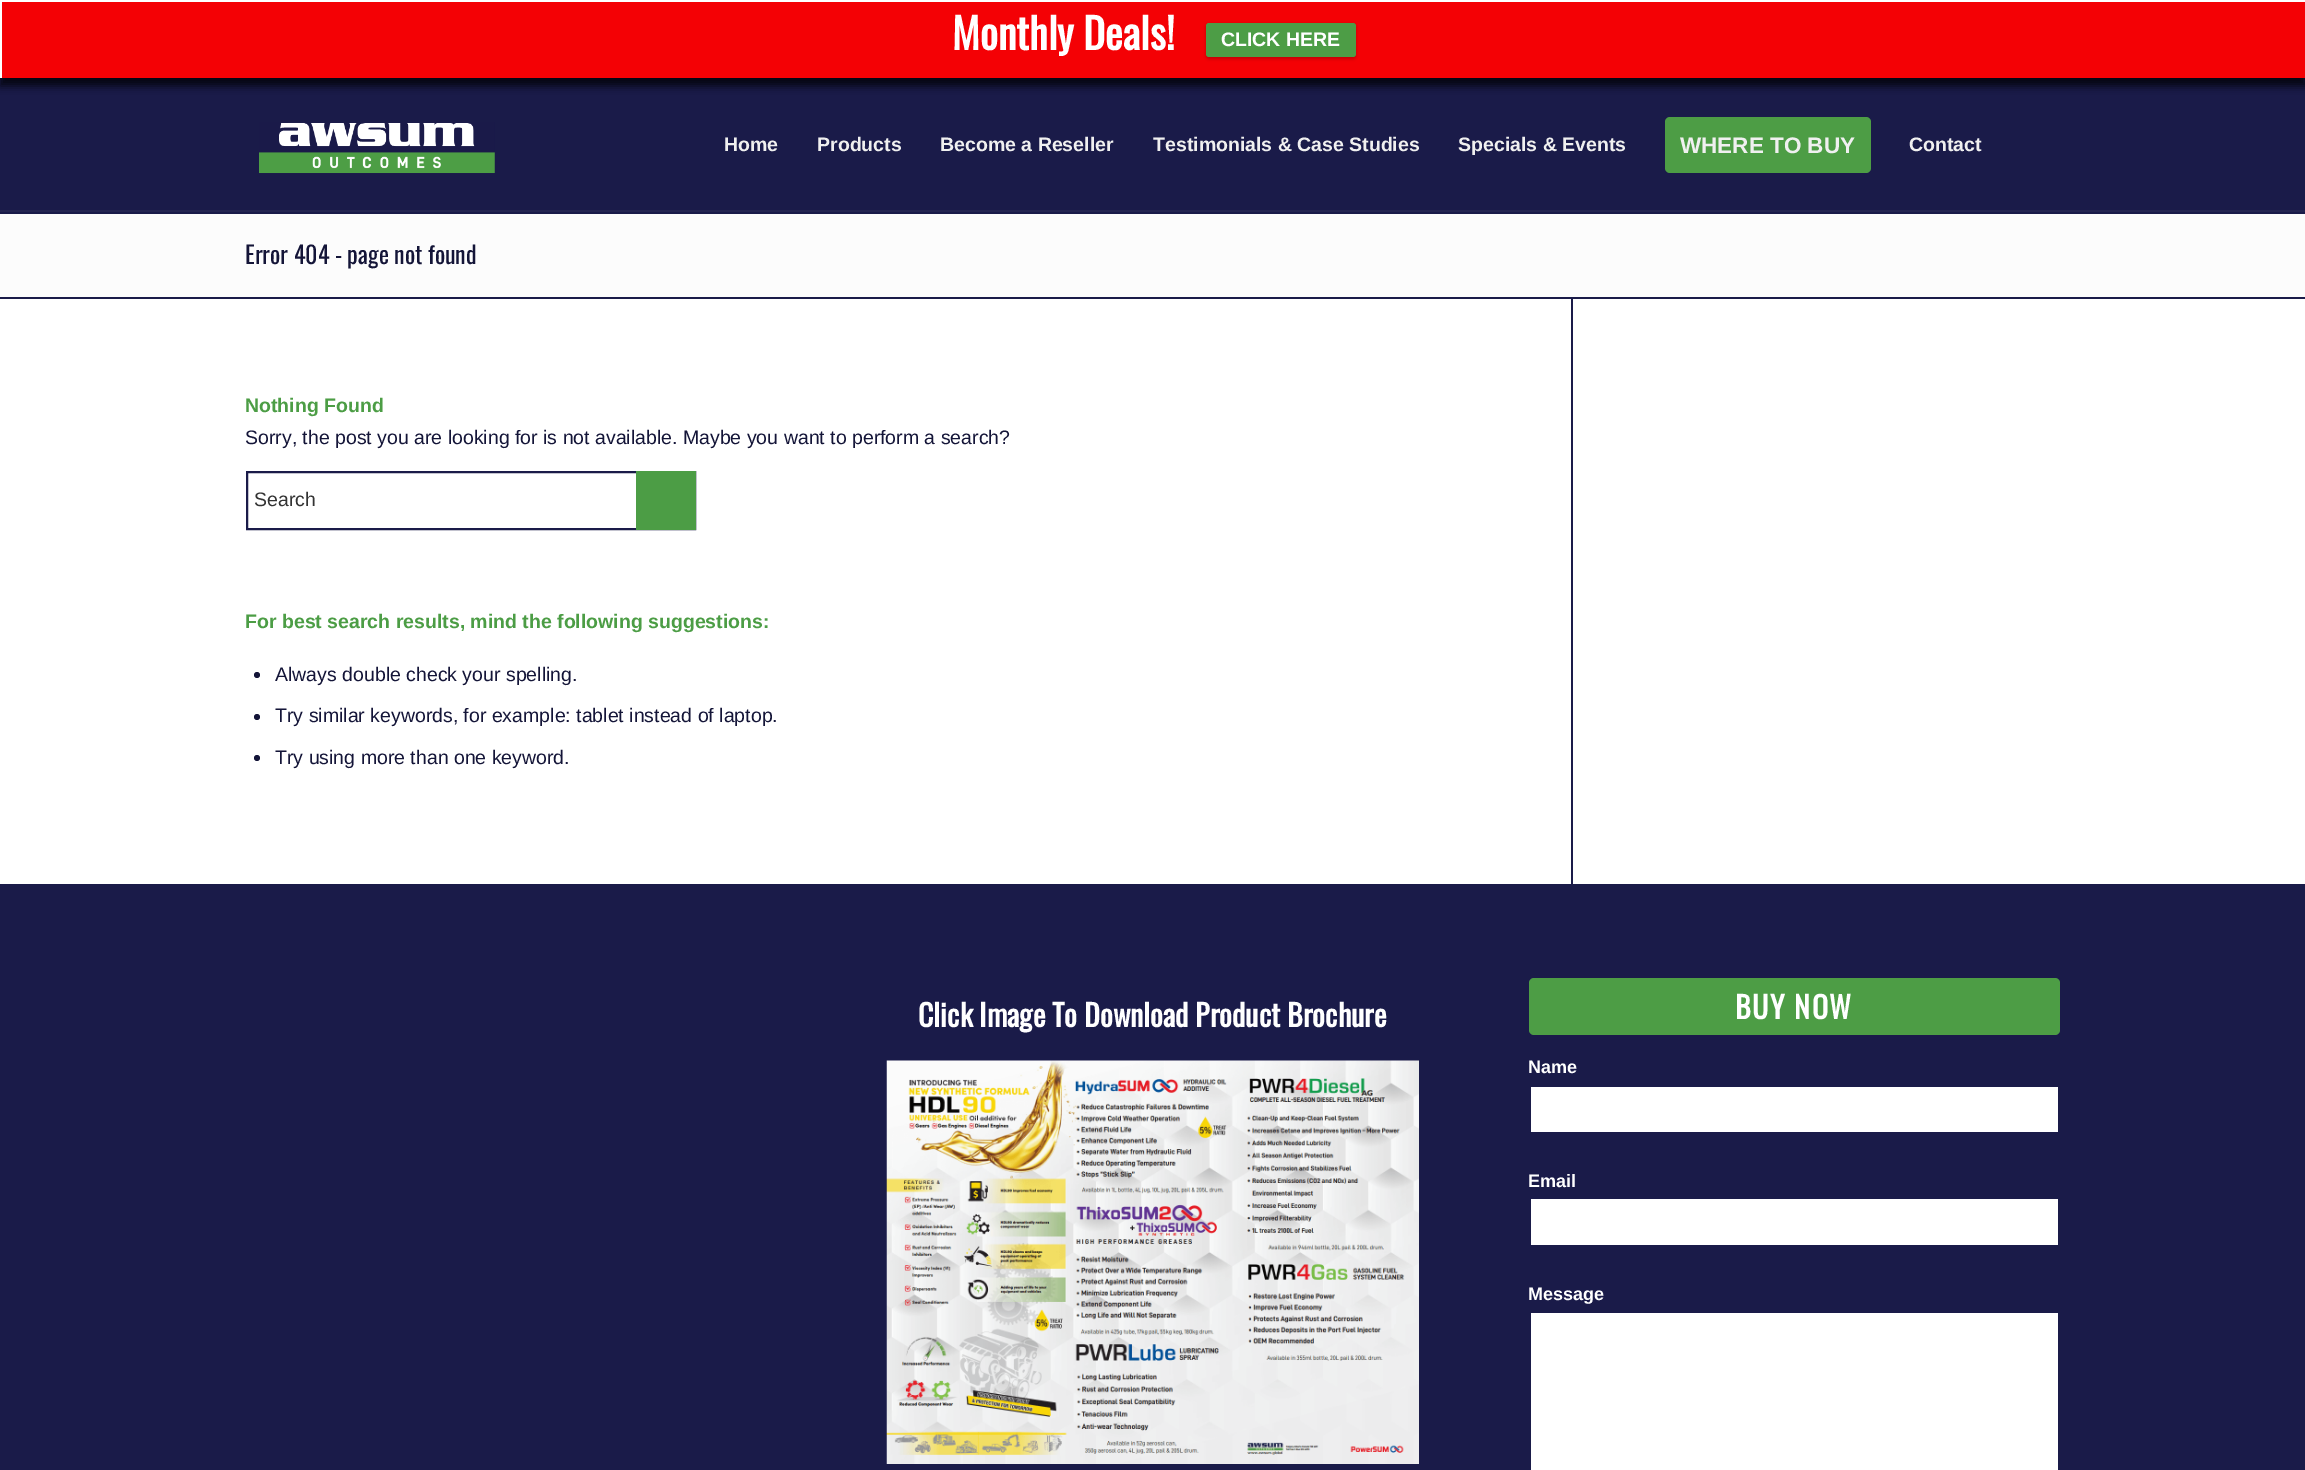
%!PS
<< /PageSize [2305 1470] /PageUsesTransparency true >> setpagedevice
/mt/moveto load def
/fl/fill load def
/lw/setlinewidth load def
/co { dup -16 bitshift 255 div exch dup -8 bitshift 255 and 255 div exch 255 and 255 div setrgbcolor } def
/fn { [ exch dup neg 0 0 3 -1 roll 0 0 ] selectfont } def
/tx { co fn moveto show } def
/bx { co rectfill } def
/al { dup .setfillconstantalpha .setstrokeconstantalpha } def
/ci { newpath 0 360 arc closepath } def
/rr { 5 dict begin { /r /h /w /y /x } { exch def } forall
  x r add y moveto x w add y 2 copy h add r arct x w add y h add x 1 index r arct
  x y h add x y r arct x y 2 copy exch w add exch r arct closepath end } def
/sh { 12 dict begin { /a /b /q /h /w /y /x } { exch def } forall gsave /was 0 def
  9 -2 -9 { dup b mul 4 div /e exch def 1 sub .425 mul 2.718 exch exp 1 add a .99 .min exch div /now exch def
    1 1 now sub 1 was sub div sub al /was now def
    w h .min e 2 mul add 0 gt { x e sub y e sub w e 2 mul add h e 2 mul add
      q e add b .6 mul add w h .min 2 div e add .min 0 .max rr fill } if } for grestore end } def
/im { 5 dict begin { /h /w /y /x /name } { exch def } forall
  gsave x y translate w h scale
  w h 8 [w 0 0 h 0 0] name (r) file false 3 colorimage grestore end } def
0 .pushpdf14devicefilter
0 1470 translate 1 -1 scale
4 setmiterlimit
0 0 2305 1470 16#1A1B49 bx
16#000000 co
0 8 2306 78 0 4 .75 sh
2 2 2303 76 16#F40105 bx
0 0 2305 2 16#FFFFFF bx
0 0 2 78 16#FFFFFF bx
16#000000 co
1206 24 150 35 3 1.5 .2 sh
16#4D9D46 co
1206 23 150 34 3 rr fl
(media/1.raw) 259 122 236 52 im
16#4D9D45 co
1665 117 206 56 5 rr fl
0 214 2305 83 16#FCFCFC bx
0 210 2305 2 16#242551 bx
0 299 2305 585 16#FFFFFF bx
1571 299 2 585 16#1A1B49 bx
2 lw
247 472 448 57 rectstroke
636 471 60 59 16#4C9D45 bx
16#141538 co
257 675 3 ci fl
257 717 3 ci fl
257 758 3 ci fl
(media/2.raw) 886 1060 533 404 im
16#4D9D45 co
1529 978 531 57 5 rr fl
1531 1087 527 45 16#FFFFFF bx
1531 1199 527 46 16#FFFFFF bx
1531 1313 527 157 16#FFFFFF bx
(Monthly Deals!) 952 50 /Oswald-Bold 42 16#FFFFFF tx
(CLICK HERE) 1221 46 /LiberationSans-Bold 19.5 16#FFFFFF tx
(Home) 724 151 /LiberationSans-Bold 19.5 16#F0F0F0 tx
(Products) 817 151 /LiberationSans-Bold 19.5 16#F0F0F0 tx
(Become a Reseller) 940 151 /LiberationSans-Bold 19.5 16#F0F0F0 tx
(Testimonials & Case Studies) 1153 151 /LiberationSans-Bold 19.5 16#F0F0F0 tx
(Specials & Events) 1458 151 /LiberationSans-Bold 19.5 16#F0F0F0 tx
(WHERE TO BUY) 1680 153 /LiberationSans-Bold 22.5 16#F0F0F0 tx
(Contact) 1909 151 /LiberationSans-Bold 19.5 16#F0F0F0 tx
(Error 404 - page not found) 245 264 /Oswald-Regular 24 16#141538 tx
(Nothing Found) 245 412 /LiberationSans-Bold 19.5 16#4C9D45 tx
(Sorry, the post you are looking for is not available. Maybe you want to perform a search?) 245 444 /LiberationSans-Regular 19.5 16#141538 tx
(Search) 254 506 /LiberationSans-Regular 19.5 16#333333 tx
(For best search results, mind the following suggestions:) 245 628 /LiberationSans-Bold 19.5 16#4C9D45 tx
(Always double check your spelling.) 275 681 /LiberationSans-Regular 19.5 16#141538 tx
(Try similar keywords, for example: tablet instead of laptop.) 275 722 /LiberationSans-Regular 19.5 16#141538 tx
(Try using more than one keyword.) 275 764 /LiberationSans-Regular 19.5 16#141538 tx
(Click Image To Download Product Brochure) 918 1027 /Oswald-Bold 30 16#FFFFFF tx
1735 1019 mt 1.5 0 (BUY NOW) ashow
(Name) 1528 1073 /LiberationSans-Bold 18 16#FFFFFF tx
(Email) 1528 1187 /LiberationSans-Bold 18 16#FFFFFF tx
(Message) 1528 1300 /LiberationSans-Bold 18 16#FFFFFF tx
.poppdf14devicefilter showpage
